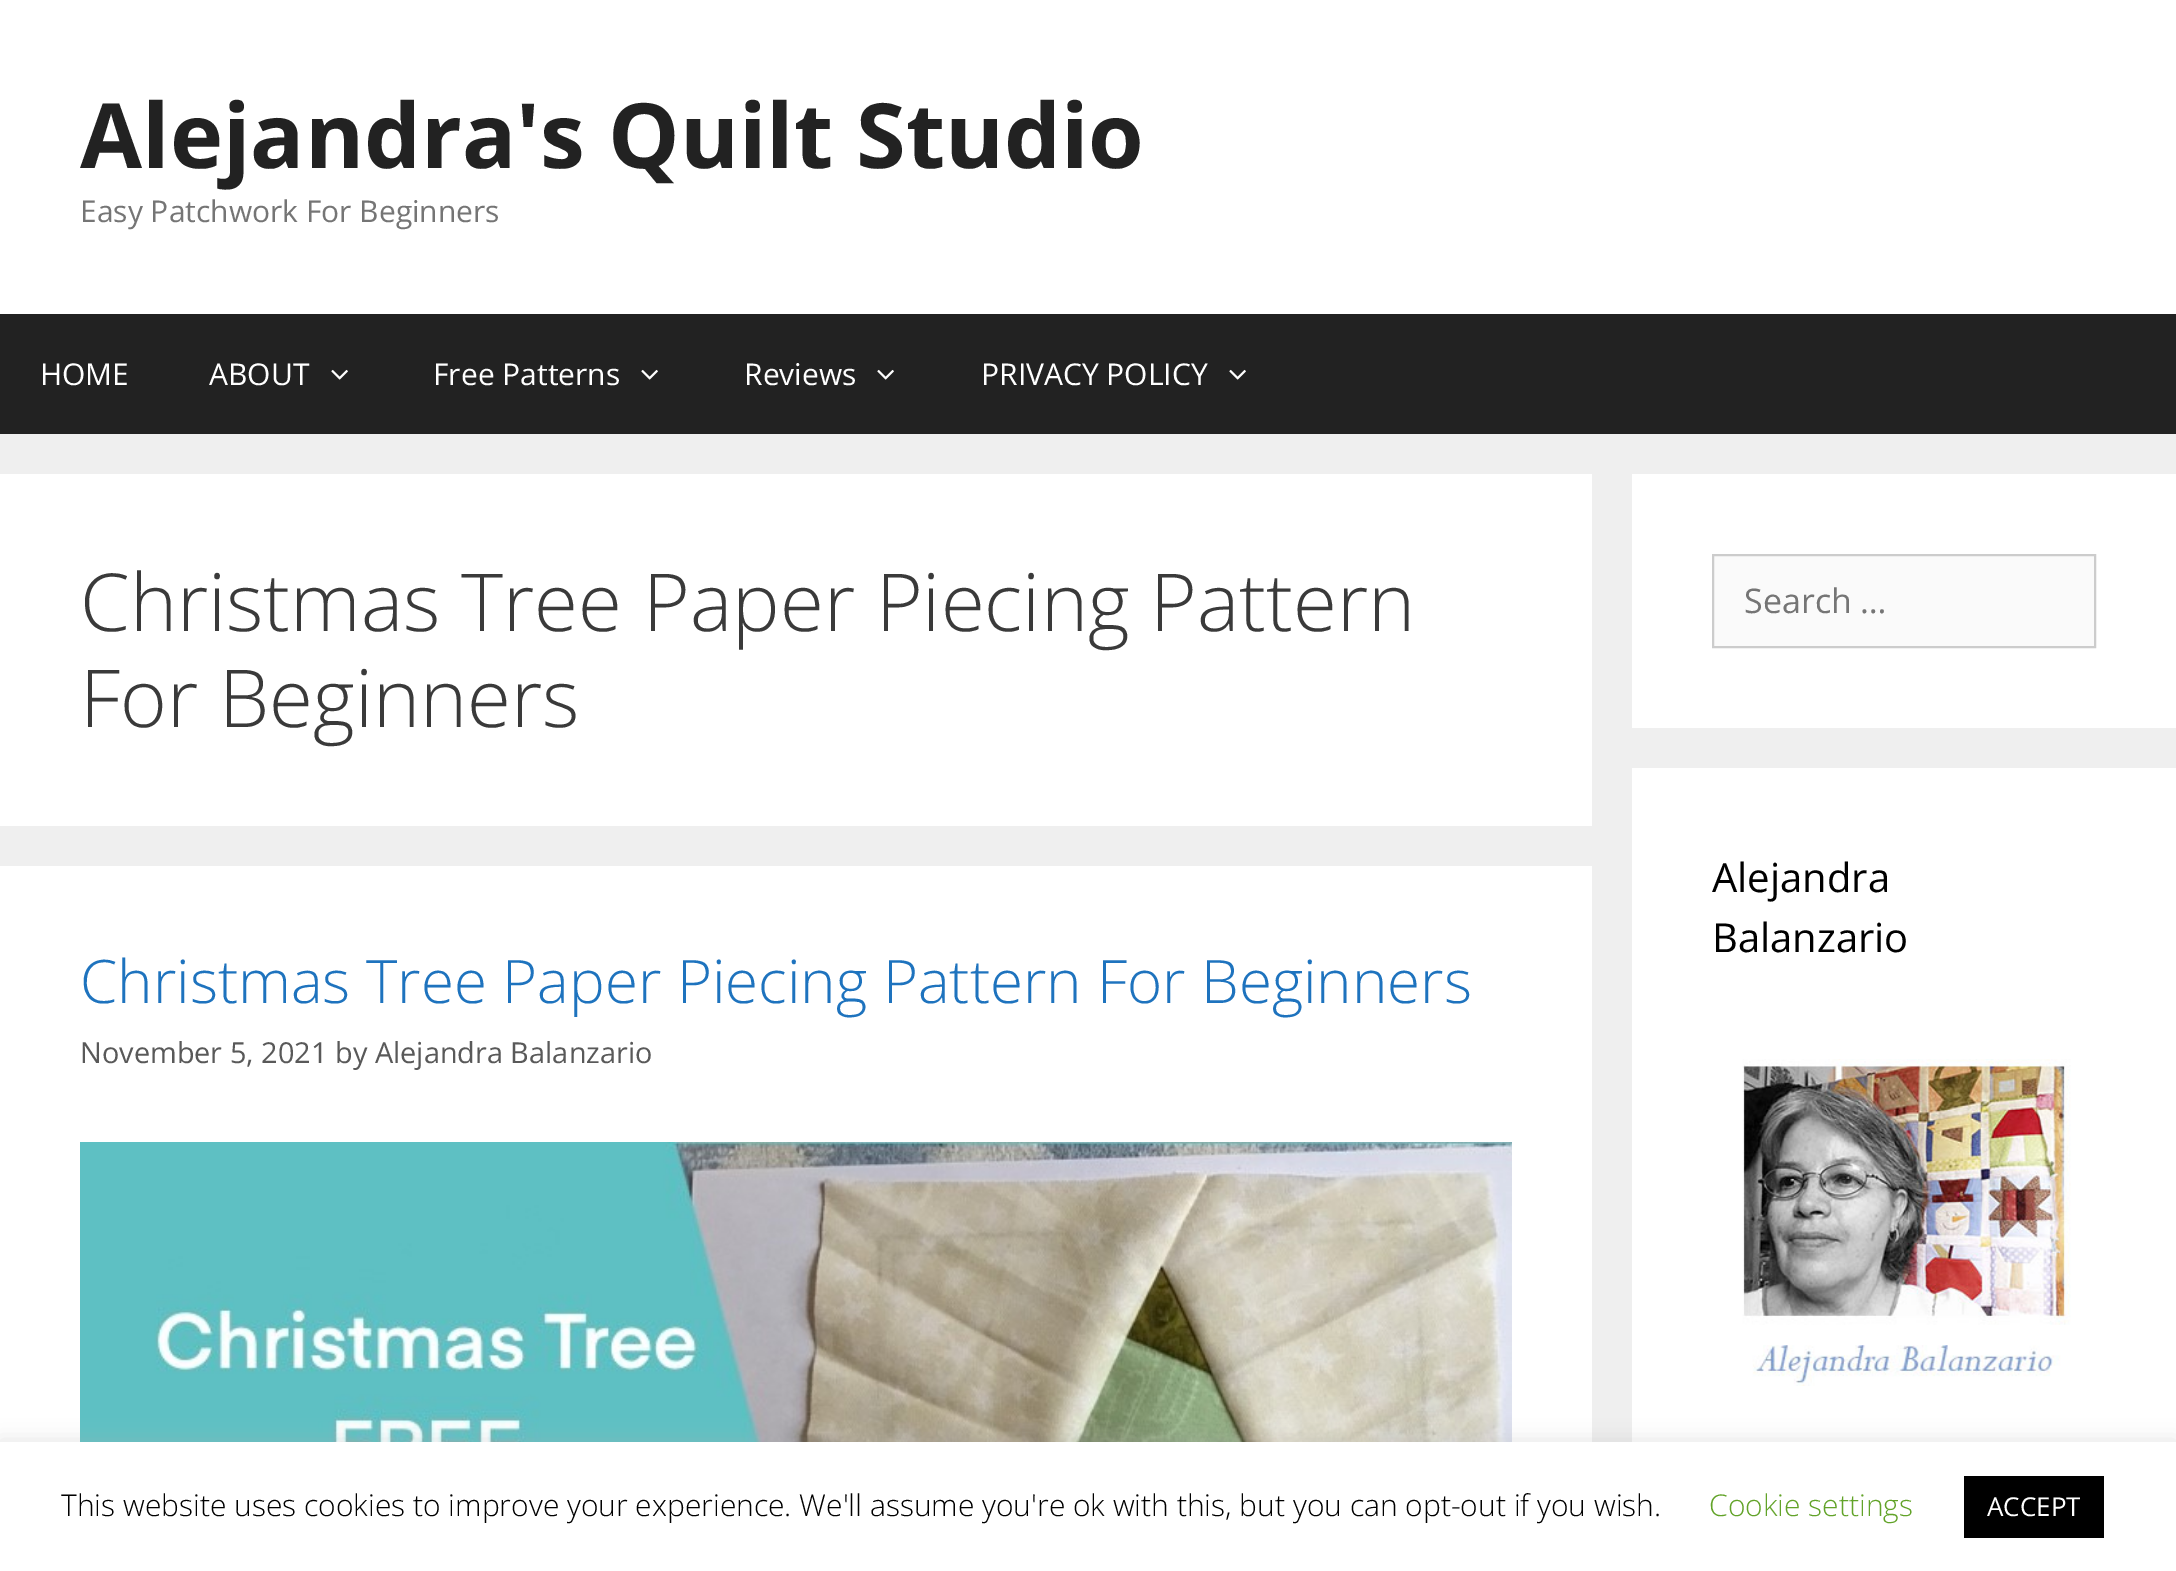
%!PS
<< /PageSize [2176 1571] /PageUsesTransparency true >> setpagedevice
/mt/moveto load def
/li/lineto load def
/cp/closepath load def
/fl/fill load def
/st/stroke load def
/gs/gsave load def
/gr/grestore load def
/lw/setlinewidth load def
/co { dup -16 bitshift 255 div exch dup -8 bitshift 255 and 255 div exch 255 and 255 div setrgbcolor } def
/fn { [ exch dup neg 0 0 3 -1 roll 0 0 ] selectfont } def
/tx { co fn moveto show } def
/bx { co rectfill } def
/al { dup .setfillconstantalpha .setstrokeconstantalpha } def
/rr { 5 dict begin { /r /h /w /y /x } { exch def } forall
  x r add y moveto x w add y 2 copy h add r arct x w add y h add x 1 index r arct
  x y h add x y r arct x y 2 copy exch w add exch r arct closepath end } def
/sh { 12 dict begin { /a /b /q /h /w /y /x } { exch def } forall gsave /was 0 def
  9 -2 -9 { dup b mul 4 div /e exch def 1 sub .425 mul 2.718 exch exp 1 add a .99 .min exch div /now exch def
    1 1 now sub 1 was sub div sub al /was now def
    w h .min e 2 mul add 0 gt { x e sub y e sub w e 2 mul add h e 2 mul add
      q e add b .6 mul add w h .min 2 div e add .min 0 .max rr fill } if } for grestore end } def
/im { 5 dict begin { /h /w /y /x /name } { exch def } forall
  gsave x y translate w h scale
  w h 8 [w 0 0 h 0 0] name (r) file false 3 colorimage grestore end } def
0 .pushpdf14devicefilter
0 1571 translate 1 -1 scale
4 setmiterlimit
0 0 2176 1571 16#EFEFEF bx
0 0 2176 314 16#FFFFFF bx
0 314 2176 120 16#222222 bx
(media/1.raw) 331 369 17 11 im
(media/1.raw) 641 369 17 11 im
(media/1.raw) 877 369 17 11 im
(media/1.raw) 1229 369 17 11 im
0 474 1592 352 16#FFFFFF bx
0 866 1592 576 16#FFFFFF bx
(media/2.raw) 80 1142 1432 300 im
1632 474 544 254 16#FFFFFF bx
16#FAFAFA co
1713 555 mt 2095 555 li 2095 647 li 1713 647 li cp gs fl gr
16#CCCCCC co
2 lw
st
1632 768 544 674 16#FFFFFF bx
(media/3.raw) 1742 1059 329 327 im
16#ACABAB co
0 1440 2176 130 0 10 .3 sh
0 1442 2176 129 16#FFFFFF bx
1964 1476 140 62 16#000000 bx
(Alejandra's Quilt Studio) 80 168 /OpenSans-Bold 90 16#222222 tx
(Easy Patchwork For Beginners) 80 222 /OpenSans-Regular 30 16#757575 tx
(HOME) 40 385 /OpenSans-Regular 30 16#FFFFFF tx
(ABOUT) 209 385 /OpenSans-Regular 30 16#FFFFFF tx
(Free Patterns) 433 385 /OpenSans-Regular 30 16#FFFFFF tx
(Reviews) 744 385 /OpenSans-Regular 30 16#FFFFFF tx
(PRIVACY POLICY) 981 385 /OpenSans-Regular 30 16#FFFFFF tx
(Christmas Tree Paper Piecing Pattern) 80 631 /OpenSans-Light 80 16#3A3A3A tx
(For Beginners) 80 727 /OpenSans-Light 80 16#3A3A3A tx
(Christmas Tree Paper Piecing Pattern For Beginners) 80 1003 /OpenSans-Light 60 16#1E73BE tx
(November 5, 2021 by Alejandra Balanzario) 80 1063 /OpenSans-Regular 28.9 16#595959 tx
(Search …) 1744 613 /OpenSans-Regular 34 16#757575 tx
(Alejandra) 1712 892 /OpenSans-Regular 40 16#000000 tx
(Balanzario) 1712 952 /OpenSans-Regular 40 16#000000 tx
(This website uses cookies to improve your experience. We'll assume you're ok with this, but you can opt-out if you wish.) 61 1516 /OpenSans-Light 30 16#000000 tx
(Cookie settings) 1709 1516 /OpenSans-Light 30 16#62A329 tx
(ACCEPT) 1987 1516 /OpenSans-Regular 26 16#FFFFFF tx
.poppdf14devicefilter showpage
